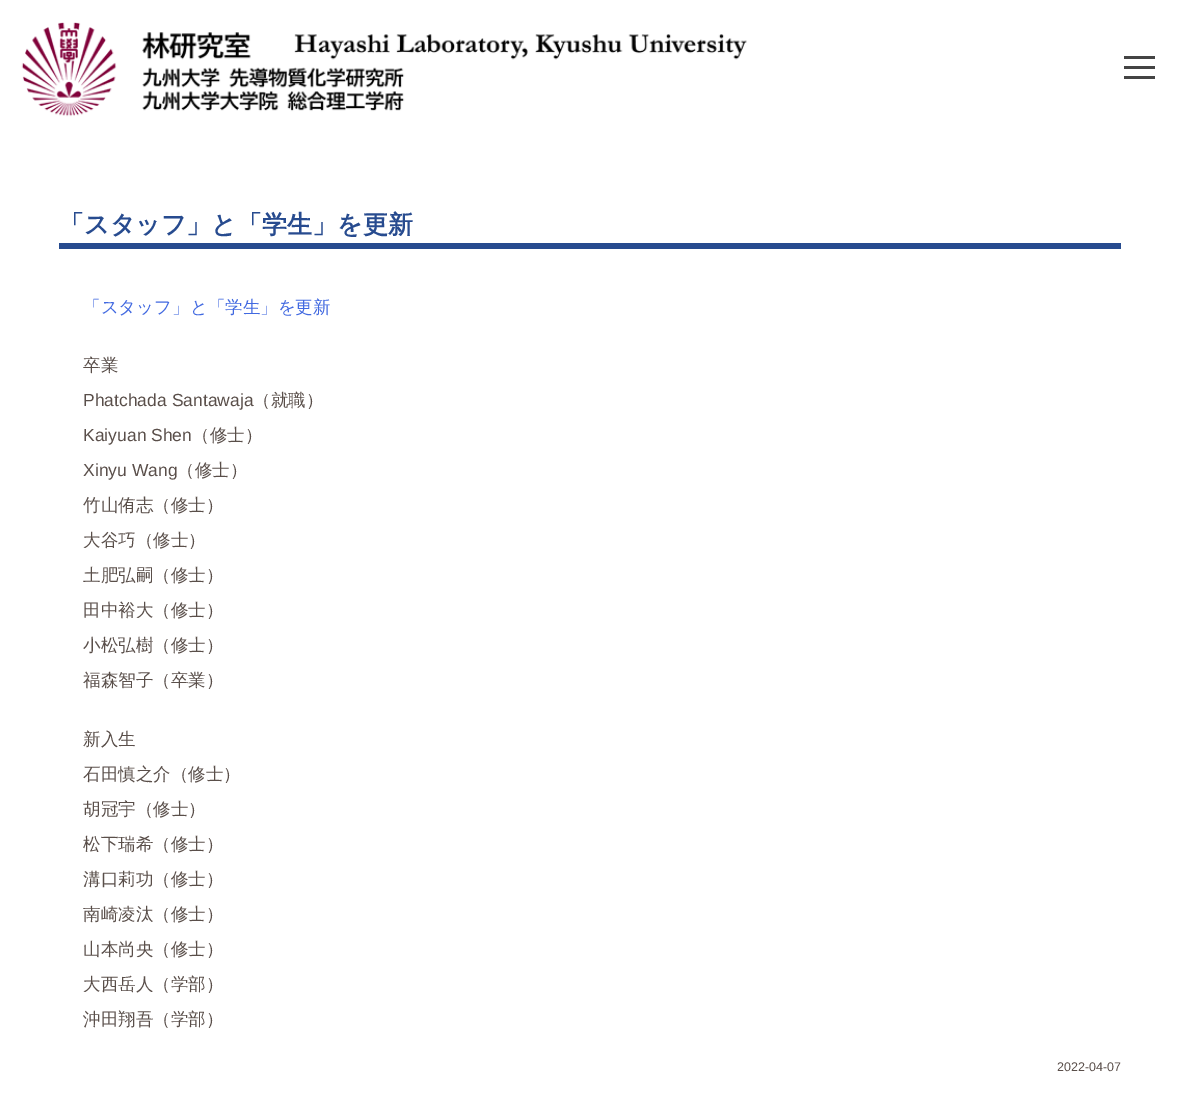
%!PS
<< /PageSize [1180 1106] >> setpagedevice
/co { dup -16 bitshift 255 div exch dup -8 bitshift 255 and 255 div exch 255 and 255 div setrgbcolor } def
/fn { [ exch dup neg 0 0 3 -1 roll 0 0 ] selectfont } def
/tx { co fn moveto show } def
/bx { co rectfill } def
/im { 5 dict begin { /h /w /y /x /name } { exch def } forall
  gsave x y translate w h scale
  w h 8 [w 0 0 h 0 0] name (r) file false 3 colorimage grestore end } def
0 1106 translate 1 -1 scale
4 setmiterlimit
0 0 1180 1106 16#FFFFFF bx
(media/1.raw) 21 22 726 95 im
1124 56 31 3 16#444444 bx
1124 66 31 3 16#444444 bx
1124 76 31 3 16#444444 bx
59 243 1062 6 16#274B8F bx
(「スタッフ」と「学生」を更新) 59 233 /WenQuanYiZenHei-Bold 25 16#274B8F tx
(「スタッフ」と「学生」を更新) 83 313 /WenQuanYiZenHei-Medium 17.5 16#4169E1 tx
(卒業) 83 371 /WenQuanYiZenHei-Medium 17.5 16#5A4F4A tx
(Phatchada Santawaja) 83 406 /LiberationSans-Regular 17.5 16#5A4F4A tx
(（就職）) 253 406 /WenQuanYiZenHei-Medium 17.5 16#5A4F4A tx
(Kaiyuan Shen) 83 441 /LiberationSans-Regular 17.5 16#5A4F4A tx
(（修士）) 192 441 /WenQuanYiZenHei-Medium 17.5 16#5A4F4A tx
(Xinyu Wang) 83 476 /LiberationSans-Regular 17.5 16#5A4F4A tx
(（修士）) 177 476 /WenQuanYiZenHei-Medium 17.5 16#5A4F4A tx
(竹山侑志（修士）) 83 511 /WenQuanYiZenHei-Medium 17.5 16#5A4F4A tx
(大谷巧（修士）) 83 546 /WenQuanYiZenHei-Medium 17.5 16#5A4F4A tx
(土肥弘嗣（修士）) 83 581 /WenQuanYiZenHei-Medium 17.5 16#5A4F4A tx
(田中裕大（修士）) 83 616 /WenQuanYiZenHei-Medium 17.5 16#5A4F4A tx
(小松弘樹（修士）) 83 651 /WenQuanYiZenHei-Medium 17.5 16#5A4F4A tx
(福森智子（卒業）) 83 686 /WenQuanYiZenHei-Medium 17.5 16#5A4F4A tx
(新入生) 83 745 /WenQuanYiZenHei-Medium 17.5 16#5A4F4A tx
(石田慎之介（修士）) 83 780 /WenQuanYiZenHei-Medium 17.5 16#5A4F4A tx
(胡冠宇（修士）) 83 815 /WenQuanYiZenHei-Medium 17.5 16#5A4F4A tx
(松下瑞希（修士）) 83 850 /WenQuanYiZenHei-Medium 17.5 16#5A4F4A tx
(溝口莉功（修士）) 83 885 /WenQuanYiZenHei-Medium 17.5 16#5A4F4A tx
(南崎凌汰（修士）) 83 920 /WenQuanYiZenHei-Medium 17.5 16#5A4F4A tx
(山本尚央（修士）) 83 955 /WenQuanYiZenHei-Medium 17.5 16#5A4F4A tx
(大西岳人（学部）) 83 990 /WenQuanYiZenHei-Medium 17.5 16#5A4F4A tx
(沖田翔吾（学部）) 83 1025 /WenQuanYiZenHei-Medium 17.5 16#5A4F4A tx
(2022-04-07) 1057 1071 /LiberationSans-Regular 12.5 16#5A4F4A tx
showpage
